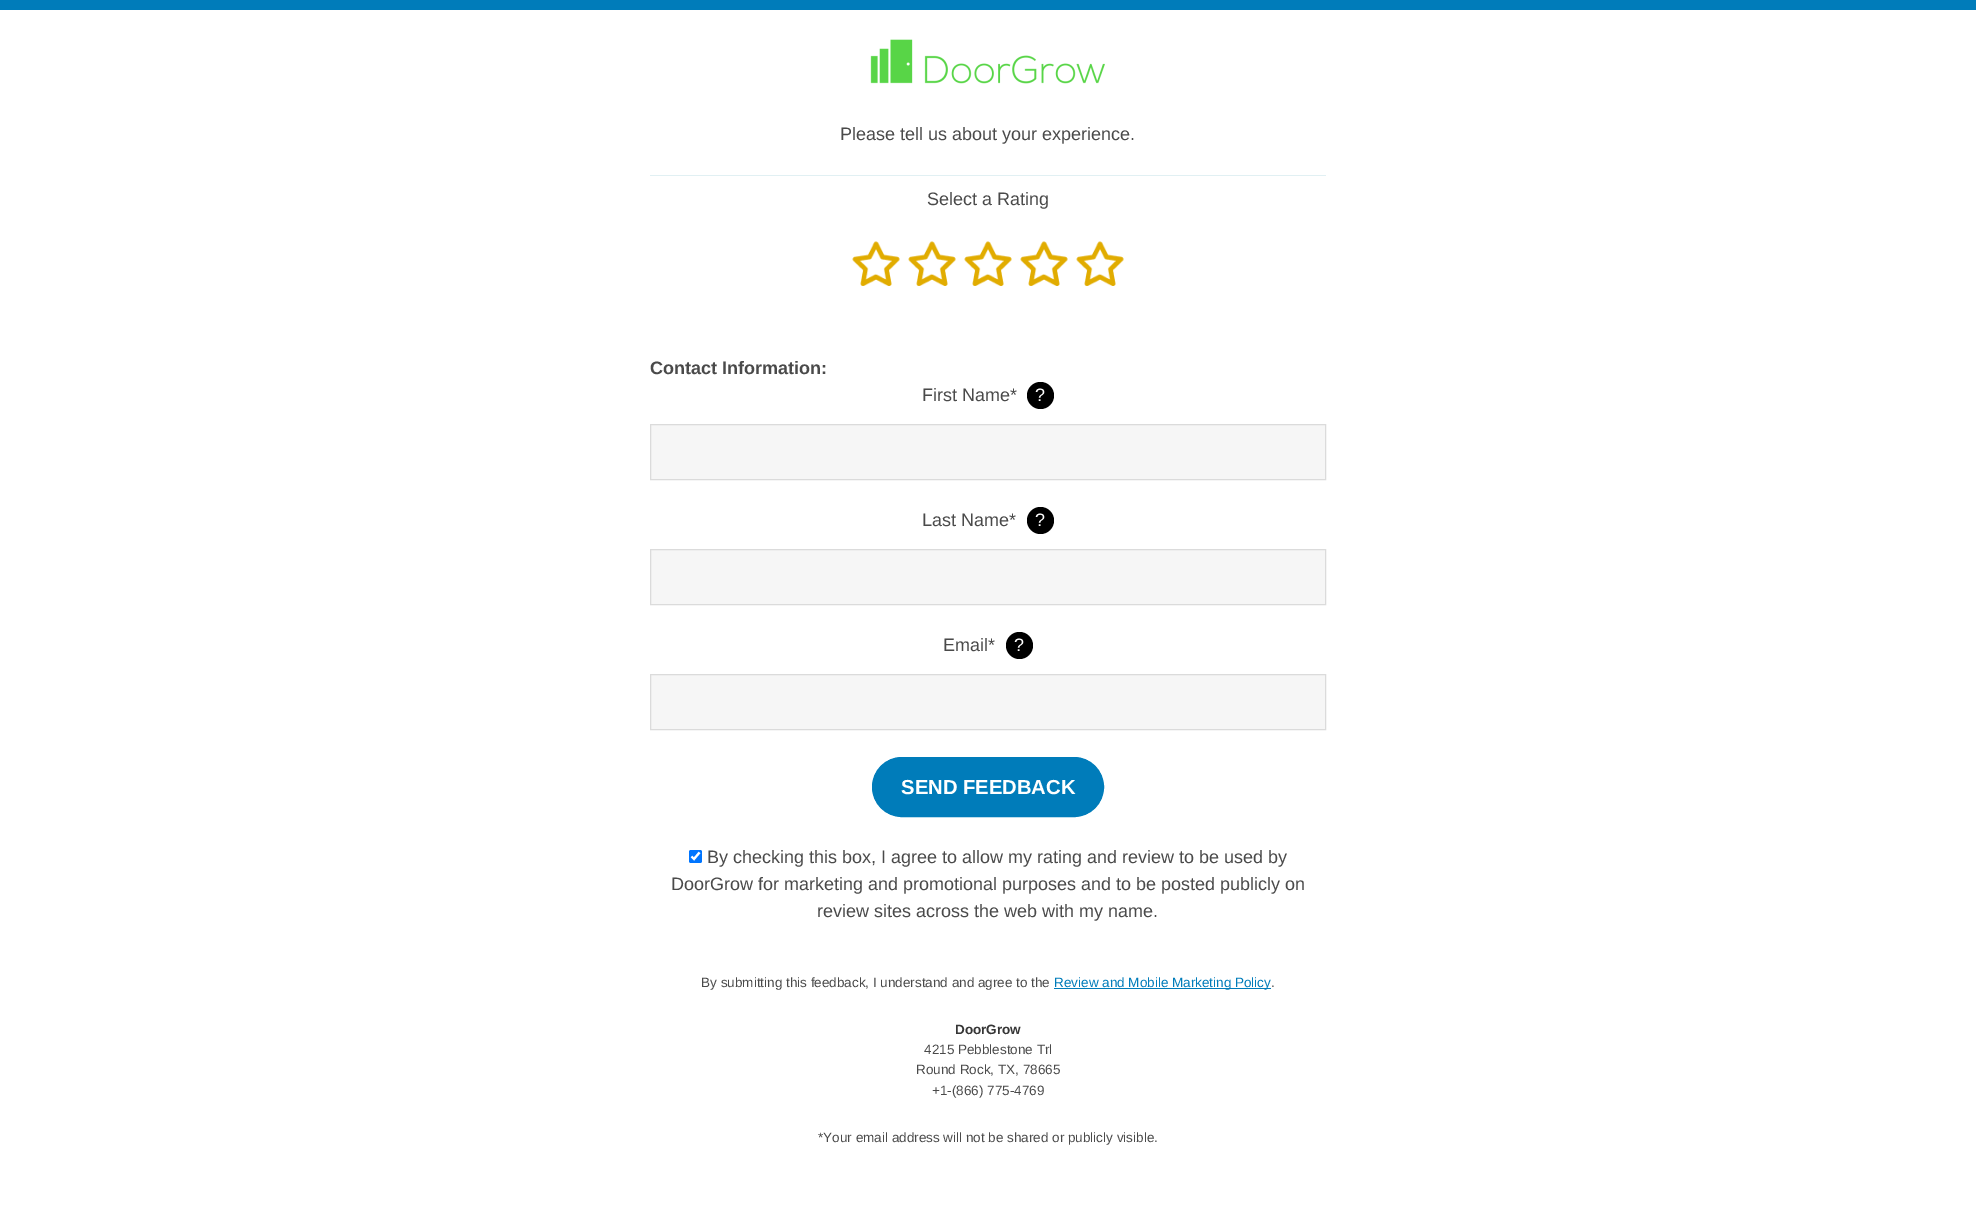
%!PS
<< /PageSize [1976 1223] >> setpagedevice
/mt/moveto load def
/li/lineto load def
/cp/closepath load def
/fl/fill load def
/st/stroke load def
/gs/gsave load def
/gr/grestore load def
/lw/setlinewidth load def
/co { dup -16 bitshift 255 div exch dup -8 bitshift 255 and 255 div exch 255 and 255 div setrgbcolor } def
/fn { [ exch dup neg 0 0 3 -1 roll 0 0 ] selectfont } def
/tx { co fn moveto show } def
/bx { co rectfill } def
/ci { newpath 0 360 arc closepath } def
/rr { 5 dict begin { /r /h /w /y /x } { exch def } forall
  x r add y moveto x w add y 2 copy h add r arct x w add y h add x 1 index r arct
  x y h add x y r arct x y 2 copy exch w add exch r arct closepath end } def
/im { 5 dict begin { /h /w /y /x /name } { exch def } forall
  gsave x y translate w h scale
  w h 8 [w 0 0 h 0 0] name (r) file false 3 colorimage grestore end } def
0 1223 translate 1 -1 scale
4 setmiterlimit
0 0 1976 1223 16#FFFFFF bx
0 0 1976 10 16#007CBA bx
(media/1.raw) 870 39 235 45 im
650 175 676 1 16#E1F0F3 bx
(media/2.raw) 852 241 48 45 im
(media/2.raw) 908 241 48 45 im
(media/2.raw) 964 241 48 45 im
(media/3.raw) 1020 241 48 45 im
(media/3.raw) 1076 241 48 45 im
16#000000 co
1040.5 395.5 13.5 ci fl
16#F6F6F6 co
650.5 424.5 mt 1325.5 424.5 li 1325.5 479.5 li 650.5 479.5 li cp gs fl gr
16#DBDBDB co
st
16#000000 co
1040.5 520.5 13.5 ci fl
16#F6F6F6 co
650.5 549.5 mt 1325.5 549.5 li 1325.5 604.5 li 650.5 604.5 li cp gs fl gr
16#DBDBDB co
st
16#000000 co
1019.5 645.5 13.5 ci fl
16#F6F6F6 co
650.5 674.5 mt 1325.5 674.5 li 1325.5 729.5 li 650.5 729.5 li cp gs fl gr
16#DBDBDB co
st
16#007CBA co
872.5 757.5 231 59 29.5 rr gs fl gr
st
16#0075FF co
689 850 13 13 2 rr fl
16#FFFFFF co
2.1 lw
691.5 856.5 mt 694 859 li 699.5 852.5 li st
1054 988 217 1 16#007CBA bx
(Please tell us about your experience.) 840 140 /LiberationSans-Regular 18 16#4A4A4A tx
(Select a Rating) 927 205 /LiberationSans-Regular 18 16#4A4A4A tx
(Contact Information:) 650 374 /LiberationSans-Bold 18 16#4A4A4A tx
(First Name*) 922 401 /LiberationSans-Regular 18 16#4A4A4A tx
(?) 1035 401 /LiberationSans-Regular 18 16#FFFFFF tx
(Last Name*) 922 526 /LiberationSans-Regular 18 16#4A4A4A tx
(?) 1035 526 /LiberationSans-Regular 18 16#FFFFFF tx
(Email*) 943 651 /LiberationSans-Regular 18 16#4A4A4A tx
(?) 1014 651 /LiberationSans-Regular 18 16#FFFFFF tx
(SEND FEEDBACK) 901 794 /LiberationSans-Bold 20.25 16#FFFFFF tx
(By checking this box, I agree to allow my rating and review to be used by) 707 863 /LiberationSans-Regular 18 16#4A4A4A tx
(DoorGrow for marketing and promotional purposes and to be posted publicly on) 671 890 /LiberationSans-Regular 18 16#4A4A4A tx
(review sites across the web with my name.) 817 917 /LiberationSans-Regular 18 16#4A4A4A tx
(By submitting this feedback, I understand and agree to the) 701 987 /LiberationSans-Regular 13.5 16#4A4A4A tx
(Review and Mobile Marketing Policy) 1054 987 /LiberationSans-Regular 13.5 16#007CBA tx
(.) 1271 987 /LiberationSans-Regular 13.5 16#4A4A4A tx
(DoorGrow) 955 1034 /LiberationSans-Bold 13.5 16#363636 tx
(4215 Pebblestone Trl) 924 1054 /LiberationSans-Regular 13.5 16#4A4A4A tx
(Round Rock, TX, 78665) 916 1074 /LiberationSans-Regular 13.5 16#4A4A4A tx
(+1-\(866\) 775-4769) 932 1095 /LiberationSans-Regular 13.5 16#4A4A4A tx
(*Your email address will not be shared or publicly visible.) 818 1142 /LiberationSans-Regular 13.5 16#4A4A4A tx
showpage
